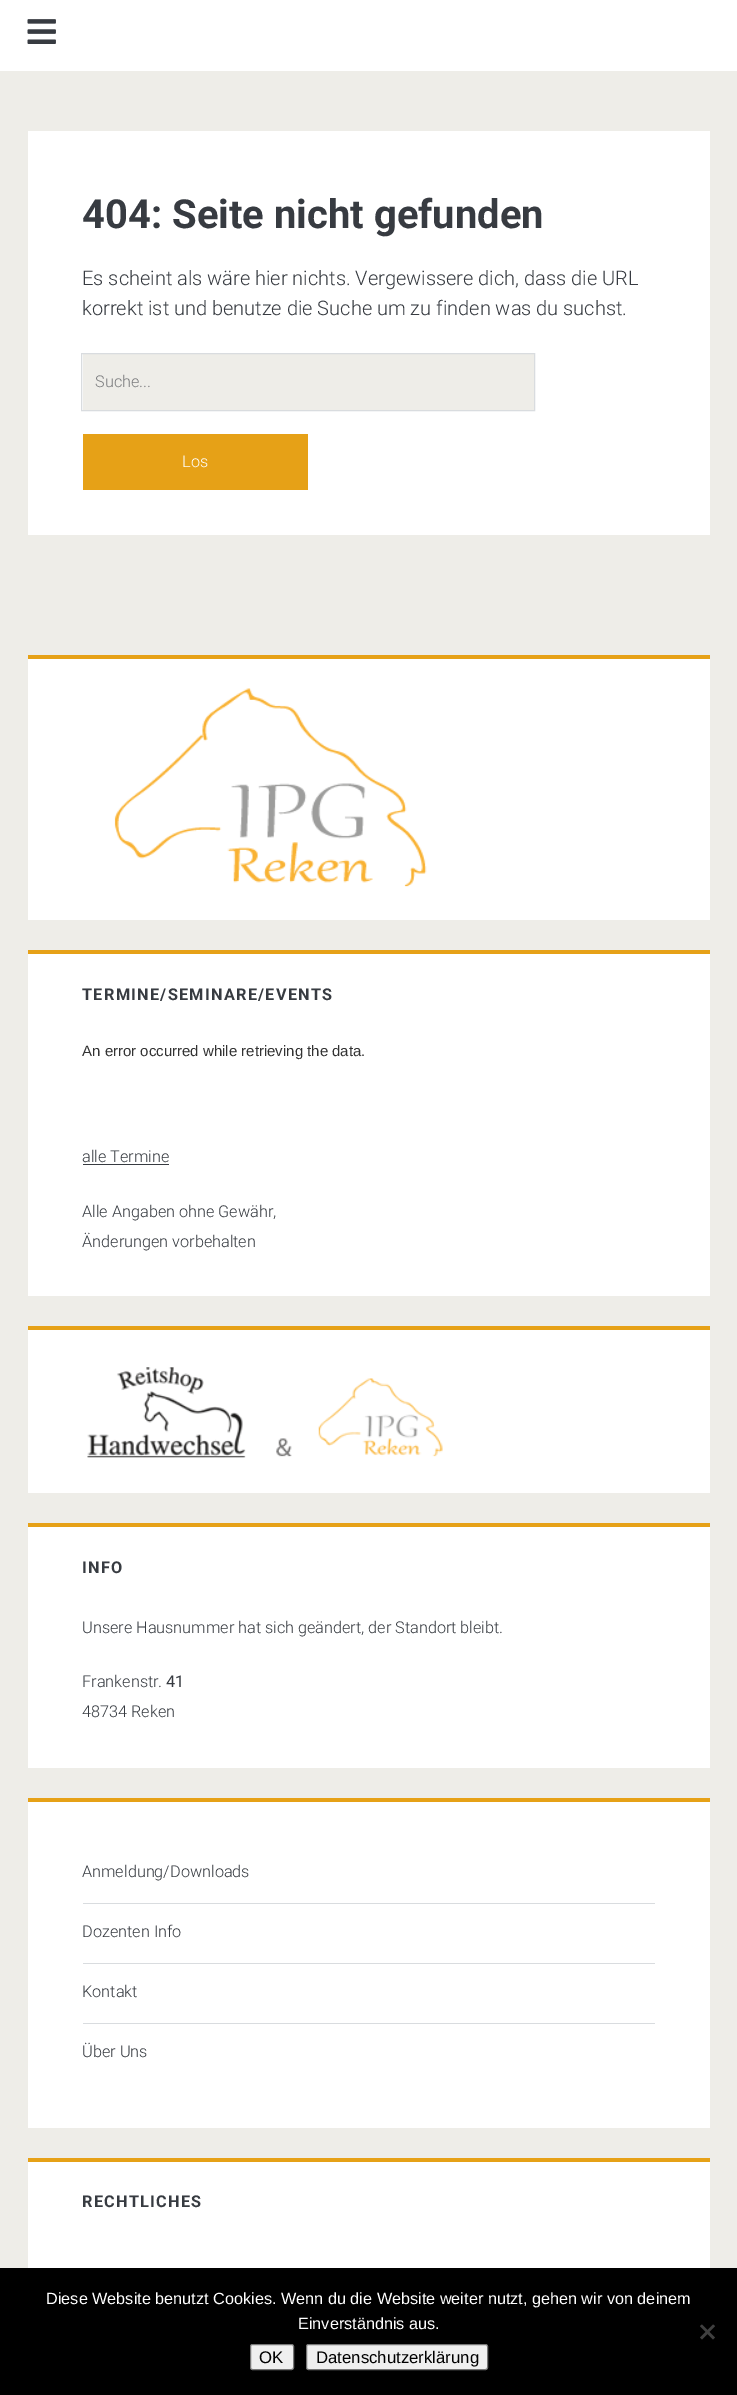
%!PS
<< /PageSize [737 2395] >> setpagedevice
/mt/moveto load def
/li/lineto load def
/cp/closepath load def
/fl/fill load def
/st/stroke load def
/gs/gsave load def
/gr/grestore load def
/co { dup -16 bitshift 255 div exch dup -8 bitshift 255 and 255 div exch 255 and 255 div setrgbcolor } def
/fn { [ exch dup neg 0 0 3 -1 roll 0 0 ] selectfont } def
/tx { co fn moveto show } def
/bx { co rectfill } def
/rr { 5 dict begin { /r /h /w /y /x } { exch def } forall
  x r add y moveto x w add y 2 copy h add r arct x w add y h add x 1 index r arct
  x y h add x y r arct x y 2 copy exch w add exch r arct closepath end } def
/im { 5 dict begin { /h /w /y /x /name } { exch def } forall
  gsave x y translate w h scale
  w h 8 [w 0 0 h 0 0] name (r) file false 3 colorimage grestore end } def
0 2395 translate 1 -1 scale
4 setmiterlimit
0 0 737 2395 16#EEEDE8 bx
0 0 737 71 16#FFFFFF bx
(media/1.raw) 27 19 29 25 im
28 131 682 404 16#FFFFFF bx
83 354 451 56 16#EEEDE8 bx
16#D9DCDF co
81.5 353.5 453 57 rectstroke
83 434 225 56 16#E6A117 bx
28 659 682 261 16#FFFFFF bx
28 655 682 4 16#E6A117 bx
(media/2.raw) 114 688 313 199 im
28 954 682 342 16#FFFFFF bx
28 950 682 4 16#E6A117 bx
83 1164 86 1 16#373B41 bx
28 1330 682 163 16#FFFFFF bx
28 1326 682 4 16#E6A117 bx
(media/3.raw) 87 1367 356 91 im
28 1527 682 241 16#FFFFFF bx
28 1523 682 4 16#E6A117 bx
28 1802 682 326 16#FFFFFF bx
28 1798 682 4 16#E6A117 bx
83 1903 572 1 16#D9DCDF bx
83 1963 572 1 16#D9DCDF bx
83 2023 572 1 16#D9DCDF bx
28 2162 682 106 16#FFFFFF bx
28 2158 682 4 16#E6A117 bx
0 2268 737 127 16#000000 bx
16#404040 co
713 2324.5 mt 715 2326 li 702 2339.5 li 700 2337.5 li cp fl
700 2326 mt 702 2324.5 li 715 2337.5 li 713 2339.5 li cp fl
16#EFEFEF co
250.5 2344.5 43 25 2 rr gs fl gr
16#767676 co
st
16#EFEFEF co
306.5 2344.5 181 25 2 rr gs fl gr
16#767676 co
st
(404: Seite nicht gefunden) 82 228 /Roboto-Bold 40 16#373B41 tx
(Es scheint als wäre hier nichts. Vergewissere dich, dass die URL) 82 285 /Roboto-Light 20 16#373B41 tx
(korrekt ist und benutze die Suche um zu finden was du suchst.) 82 315 /Roboto-Light 20 16#373B41 tx
(Suche...) 95 387 /Roboto-Light 16.25 16#7C7D7F tx
(Los) 182 467 /Roboto-Light 16.25 16#FFFFFF tx
/Roboto-Bold 16.25 fn
16#373B41 co
82 1000 mt 1.3 0 (TERMINE/SEMINARE/EVENTS) ashow
(An error occurred while retrieving the data.) 82 1056 /LiberationSans-Regular 15 16#333333 tx
(alle Termine) 82 1162 /Roboto-Light 16.25 16#373B41 tx
(Alle Angaben ohne Gewähr,) 82 1217 /Roboto-Light 16.25 16#373B41 tx
(Änderungen vorbehalten) 82 1247 /Roboto-Light 16.25 16#373B41 tx
/Roboto-Bold 16.25 fn
82 1573 mt 1.3 0 (INFO) ashow
(Unsere Hausnummer hat sich geändert, der Standort bleibt.) 82 1633 /Roboto-Light 16.25 16#373B41 tx
(Frankenstr.) 82 1687 /Roboto-Light 16.25 16#373B41 tx
(41) 166 1687 /Roboto-Regular 16.25 16#373B41 tx
(48734 Reken) 82 1717 /Roboto-Light 16.25 16#373B41 tx
(Anmeldung/Downloads) 82 1877 /Roboto-Light 16.25 16#373B41 tx
(Dozenten Info) 82 1937 /Roboto-Light 16.25 16#373B41 tx
(Kontakt) 82 1997 /Roboto-Light 16.25 16#373B41 tx
(Über Uns) 82 2057 /Roboto-Light 16.25 16#373B41 tx
/Roboto-Bold 16.25 fn
82 2207 mt 1.3 0 (RECHTLICHES) ashow
(Diese Website benutzt Cookies. Wenn du die Website weiter nutzt, gehen wir von deinem) 46 2304 /LiberationSans-Regular 16.25 16#FFFFFF tx
(Einverständnis aus.) 298 2329 /LiberationSans-Regular 16.25 16#FFFFFF tx
(OK) 259 2363 /LiberationSans-Regular 16.75 16#000000 tx
(Datenschutzerklärung) 316 2363 /LiberationSans-Regular 16.75 16#000000 tx
showpage
